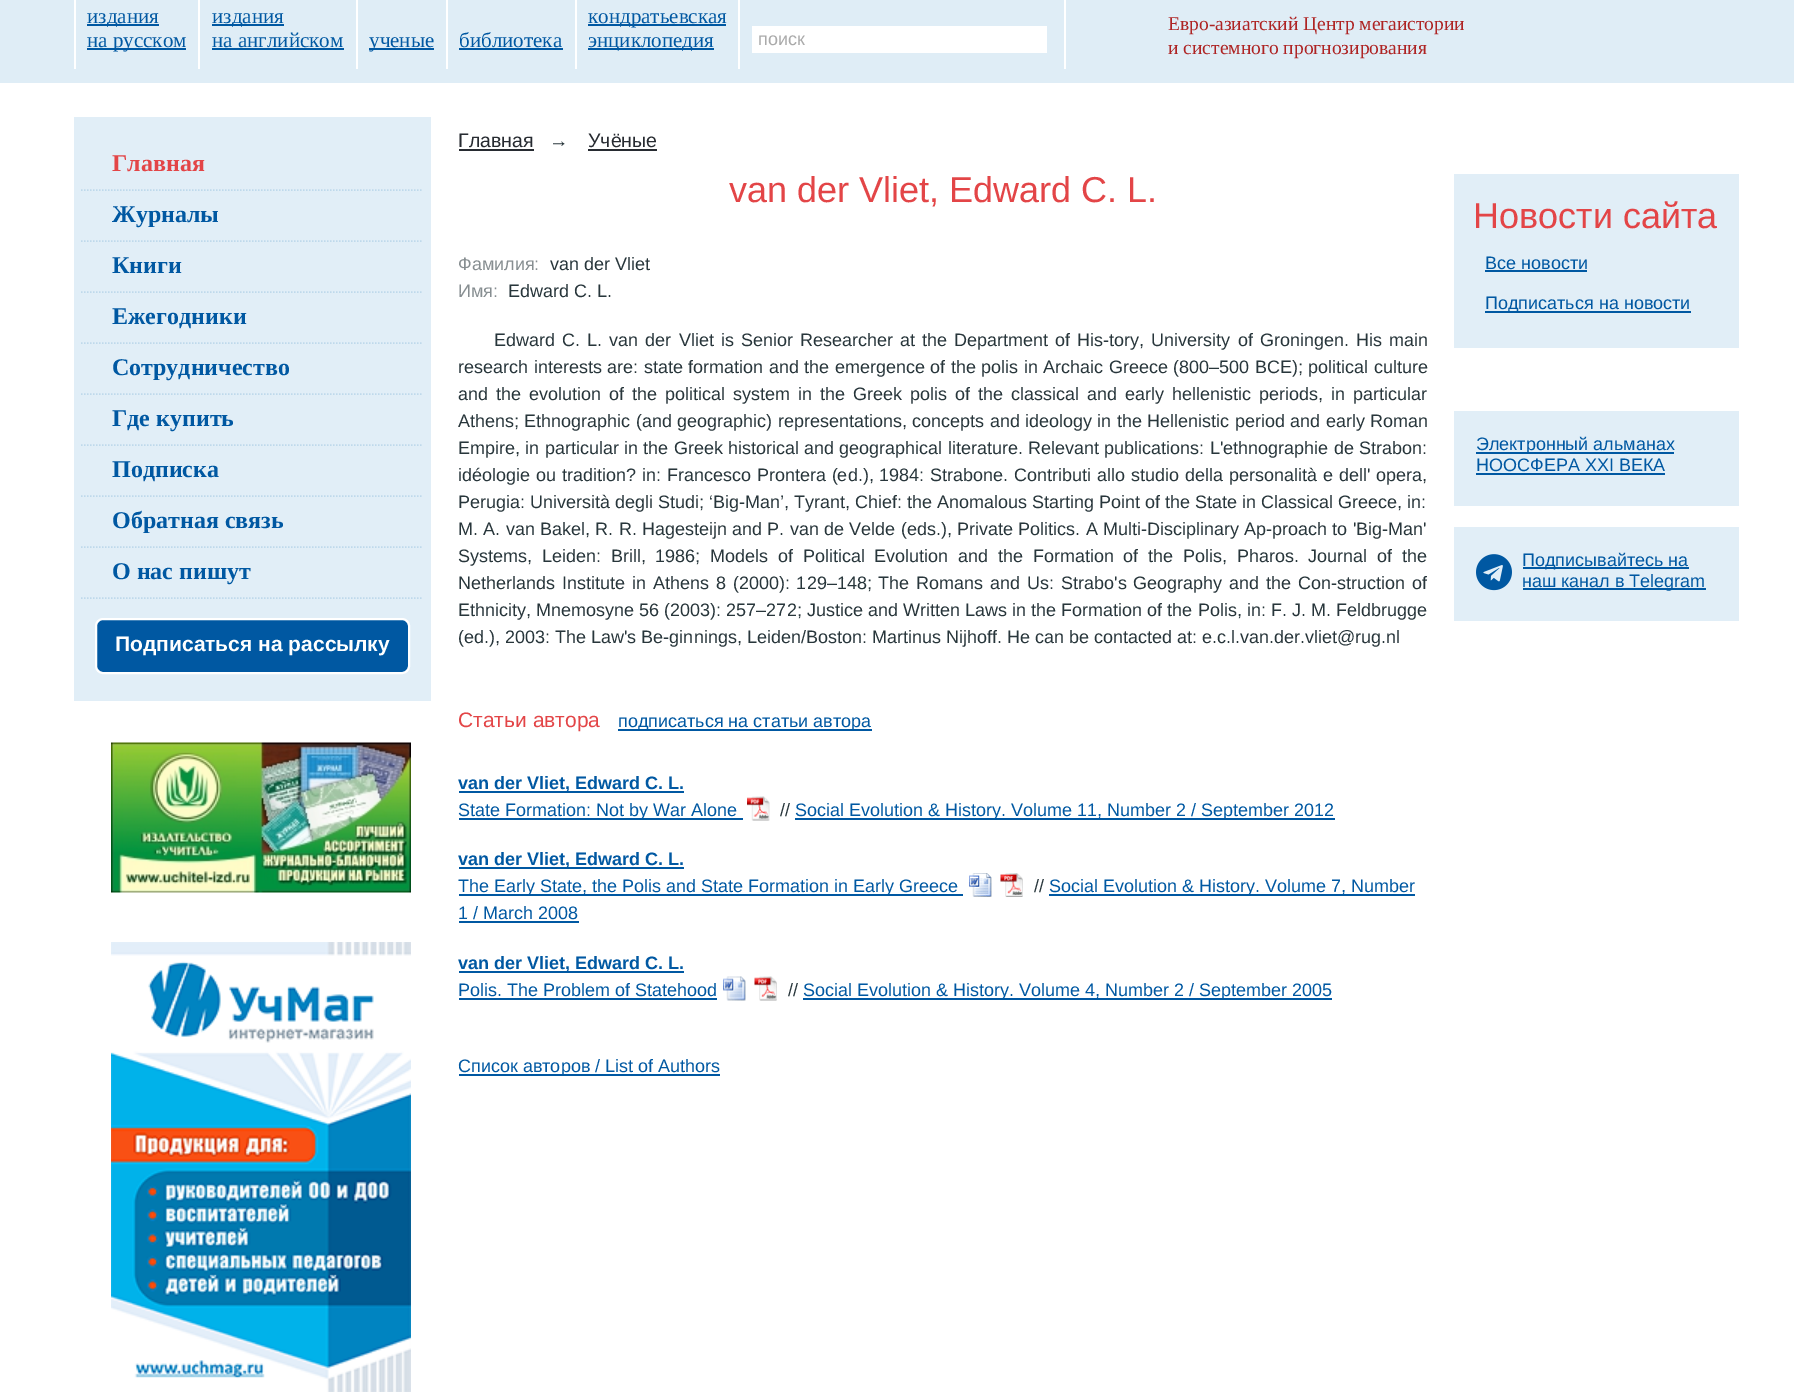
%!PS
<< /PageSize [1794 1393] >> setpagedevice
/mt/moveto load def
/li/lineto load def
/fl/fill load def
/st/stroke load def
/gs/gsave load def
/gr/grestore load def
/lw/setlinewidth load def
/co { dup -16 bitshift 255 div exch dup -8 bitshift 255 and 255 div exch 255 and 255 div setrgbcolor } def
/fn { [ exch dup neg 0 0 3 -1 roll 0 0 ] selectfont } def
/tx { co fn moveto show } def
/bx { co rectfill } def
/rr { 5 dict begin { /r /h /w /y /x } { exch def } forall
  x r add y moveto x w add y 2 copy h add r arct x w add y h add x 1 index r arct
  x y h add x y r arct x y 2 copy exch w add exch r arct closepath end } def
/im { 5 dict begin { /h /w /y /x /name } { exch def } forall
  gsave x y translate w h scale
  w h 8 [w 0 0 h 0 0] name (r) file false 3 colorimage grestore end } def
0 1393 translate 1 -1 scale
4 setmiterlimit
0 0 1794 1393 16#FFFFFF bx
0 0 1794 83 16#DFEDF6 bx
74 0 2 69 16#FFFFFF bx
87 24 72 2 16#0058A2 bx
87 48 99 2 16#0058A2 bx
198 0 2 69 16#FFFFFF bx
212 24 72 2 16#0058A2 bx
212 48 132 2 16#0058A2 bx
356 0 2 69 16#FFFFFF bx
369 48 65 2 16#0058A2 bx
446 0 2 69 16#FFFFFF bx
459 48 104 2 16#0058A2 bx
575 0 2 69 16#FFFFFF bx
588 24 138 2 16#0058A2 bx
588 48 126 2 16#0058A2 bx
1064 0 2 69 16#FFFFFF bx
738 0 2 69 16#FFFFFF bx
752 26 295 27 16#FFFFFF bx
74 117 357 584 16#E1EEF7 bx
16#BED9EB co
1.5 lw
[1.5 1.5] 0 setdash
81 190 mt 423 190 li st
81 241 mt 423 241 li st
81 292 mt 423 292 li st
81 343 mt 423 343 li st
81 394 mt 423 394 li st
81 445 mt 423 445 li st
81 496 mt 423 496 li st
81 547 mt 423 547 li st
81 598 mt 423 598 li st
16#0058A2 co
96 619 313 54 7 rr gs fl gr
16#FFFFFF co
2 lw
[] 0 setdash
st
(media/1.raw) 111 742 300 151 im
(media/2.raw) 111 942 300 450 im
459 149 75 2 16#272B31 bx
588 149 69 2 16#272B31 bx
618 729 254 2 16#0058A2 bx
459 791 225 2 16#0058A2 bx
459 818 284 2 16#0058A2 bx
(media/3.raw) 747 796 23 25 im
795 818 540 2 16#0058A2 bx
459 867 225 2 16#0058A2 bx
459 894 504 2 16#0058A2 bx
(media/4.raw) 969 873 23 24 im
(media/5.raw) 1000 873 23 24 im
1049 894 366 2 16#0058A2 bx
459 921 120 2 16#0058A2 bx
459 971 225 2 16#0058A2 bx
459 998 258 2 16#0058A2 bx
(media/6.raw) 723 976 23 25 im
(media/7.raw) 754 976 23 25 im
803 998 529 2 16#0058A2 bx
459 1074 261 2 16#0058A2 bx
1454 174 285 174 16#E1EEF7 bx
1485 270 102 2 16#0058A2 bx
1485 311 206 2 16#0058A2 bx
1454 411 285 95 16#E1EEF7 bx
1476 452 198 2 16#0058A2 bx
1476 473 189 2 16#0058A2 bx
1454 527 285 94 16#E1EEF7 bx
(media/8.raw) 1476 554 36 37 im
1523 567 166 2 16#0058A2 bx
1523 588 183 2 16#0058A2 bx
(издания) 87 23 /LiberationSerif-Regular 21 16#0058A2 tx
(на русском) 87 47 /LiberationSerif-Regular 21 16#0058A2 tx
(издания) 212 23 /LiberationSerif-Regular 21 16#0058A2 tx
(на английском) 212 47 /LiberationSerif-Regular 21 16#0058A2 tx
(ученые) 369 47 /LiberationSerif-Regular 21 16#0058A2 tx
(библиотека) 459 47 /LiberationSerif-Regular 21 16#0058A2 tx
(кондратьевская) 588 23 /LiberationSerif-Regular 21 16#0058A2 tx
(энциклопедия) 588 47 /LiberationSerif-Regular 21 16#0058A2 tx
(поиск) 758 45 /LiberationSans-Regular 18 16#AAAAAA tx
(Евро-азиатский Центр мегаистории) 1168 30 /LiberationSerif-Regular 19.5 16#AE2424 tx
(и системного прогнозирования) 1168 54 /LiberationSerif-Regular 19.5 16#AE2424 tx
(Главная) 112 171 /LiberationSerif-Bold 24 16#E34547 tx
(Журналы) 112 222 /LiberationSerif-Bold 24 16#0058A2 tx
(Книги) 112 273 /LiberationSerif-Bold 24 16#0058A2 tx
(Ежегодники) 112 324 /LiberationSerif-Bold 24 16#0058A2 tx
(Сотрудничество) 112 375 /LiberationSerif-Bold 24 16#0058A2 tx
(Где купить) 112 426 /LiberationSerif-Bold 24 16#0058A2 tx
(Подписка) 112 477 /LiberationSerif-Bold 24 16#0058A2 tx
(Обратная связь) 112 528 /LiberationSerif-Bold 24 16#0058A2 tx
(О нас пишут) 112 579 /LiberationSerif-Bold 24 16#0058A2 tx
(Подписаться на рассылку) 115 651 /LiberationSans-Bold 21 16#FFFFFF tx
(Главная) 458 147 /LiberationSans-Regular 19.5 16#272B31 tx
(→) 549 147 /LiberationSans-Regular 19.5 16#28363B tx
(Учёные) 588 147 /LiberationSans-Regular 19.5 16#272B31 tx
(van der Vliet, Edward C. L.) 729 202 /LiberationSans-Regular 36 16#E34547 tx
(Фамилия:) 458 270 /LiberationSans-Regular 18 16#878E91 tx
(van der Vliet) 550 270 /LiberationSans-Regular 18 16#28363B tx
(Имя:) 458 297 /LiberationSans-Regular 18 16#878E91 tx
(Edward C. L.) 508 297 /LiberationSans-Regular 18 16#28363B tx
494 346 mt 2.1 0 32 (Edward C. L. van der Vliet is Senior Researcher at the Department of His-tory, University of Groningen. His main) widthshow
458 373 mt .5 0 32 (research interests are: state formation and the emergence of the polis in Archaic Greece \(800–500 BCE\); political culture) widthshow
458 400 mt 3 0 32 (and the evolution of the political system in the Greek polis of the classical and early hellenistic periods, in particular) widthshow
458 427 mt .4 0 32 (Athens; Ethnographic \(and geographic\) representations, concepts and ideology in the Hellenistic period and early Roman) widthshow
458 454 mt .3 0 32 (Empire, in particular in the Greek historical and geographical literature. Relevant publications: L'ethnographie de Strabon:) widthshow
458 481 mt .9 0 32 (idéologie ou tradition? in: Francesco Prontera \(ed.\), 1984: Strabone. Contributi allo studio della personalità e dell' opera,) widthshow
(Perugia: Università degli Studi; ‘Big-Man’, Tyrant, Chief: the Anomalous Starting Point of the State in Classical Greece, in:) 458 508 /LiberationSans-Regular 18 16#28363B tx
458 535 mt .3 0 32 (M. A. van Bakel, R. R. Hagesteijn and P. van de Velde \(eds.\), Private Politics. A Multi-Disciplinary Ap-proach to 'Big-Man') widthshow
458 562 mt 4.75 0 32 (Systems, Leiden: Brill, 1986; Models of Political Evolution and the Formation of the Polis, Pharos. Journal of the) widthshow
458 589 mt 1.9 0 32 (Netherlands Institute in Athens 8 \(2000\): 129–148; The Romans and Us: Strabo's Geography and the Con-struction of) widthshow
458 616 mt .1 0 32 (Ethnicity, Mnemosyne 56 \(2003\): 257–272; Justice and Written Laws in the Formation of the Polis, in: F. J. M. Feldbrugge) widthshow
(\(ed.\), 2003: The Law's Be-ginnings, Leiden/Boston: Martinus Nijhoff. He can be contacted at: e.c.l.van.der.vliet@rug.nl) 458 643 /LiberationSans-Regular 18 16#28363B tx
(Статьи автора) 458 727 /LiberationSans-Regular 21 16#E34547 tx
(подписаться на статьи автора) 618 727 /LiberationSans-Regular 18 16#0058A2 tx
(van der Vliet, Edward C. L.) 458 789 /LiberationSans-Bold 18 16#0058A2 tx
(State Formation: Not by War Alone) 458 816 /LiberationSans-Regular 18 16#0058A2 tx
(//) 780 816 /LiberationSans-Regular 18 16#28363B tx
(Social Evolution & History. Volume 11, Number 2 / September 2012) 795 816 /LiberationSans-Regular 18 16#0058A2 tx
(van der Vliet, Edward C. L.) 458 865 /LiberationSans-Bold 18 16#0058A2 tx
(The Early State, the Polis and State Formation in Early Greece) 458 892 /LiberationSans-Regular 18 16#0058A2 tx
(//) 1034 892 /LiberationSans-Regular 18 16#28363B tx
(Social Evolution & History. Volume 7, Number) 1049 892 /LiberationSans-Regular 18 16#0058A2 tx
(1 / March 2008) 458 919 /LiberationSans-Regular 18 16#0058A2 tx
(van der Vliet, Edward C. L.) 458 969 /LiberationSans-Bold 18 16#0058A2 tx
(Polis. The Problem of Statehood) 458 996 /LiberationSans-Regular 18 16#0058A2 tx
(//) 788 996 /LiberationSans-Regular 18 16#28363B tx
(Social Evolution & History. Volume 4, Number 2 / September 2005) 803 996 /LiberationSans-Regular 18 16#0058A2 tx
(Список авторов / List of Authors) 458 1072 /LiberationSans-Regular 18 16#0058A2 tx
(Новости сайта) 1473 228 /LiberationSans-Regular 36 16#E34547 tx
(Все новости) 1485 269 /LiberationSans-Regular 18 16#0058A2 tx
(Подписаться на новости) 1485 309 /LiberationSans-Regular 18 16#0058A2 tx
(Электронный альманах) 1476 450 /LiberationSans-Regular 18 16#0058A2 tx
(НООСФЕРА XXI ВЕКА) 1476 471 /LiberationSans-Regular 18 16#0058A2 tx
(Подписывайтесь на) 1522 566 /LiberationSans-Regular 18 16#0058A2 tx
(наш канал в Telegram) 1522 587 /LiberationSans-Regular 18 16#0058A2 tx
showpage
